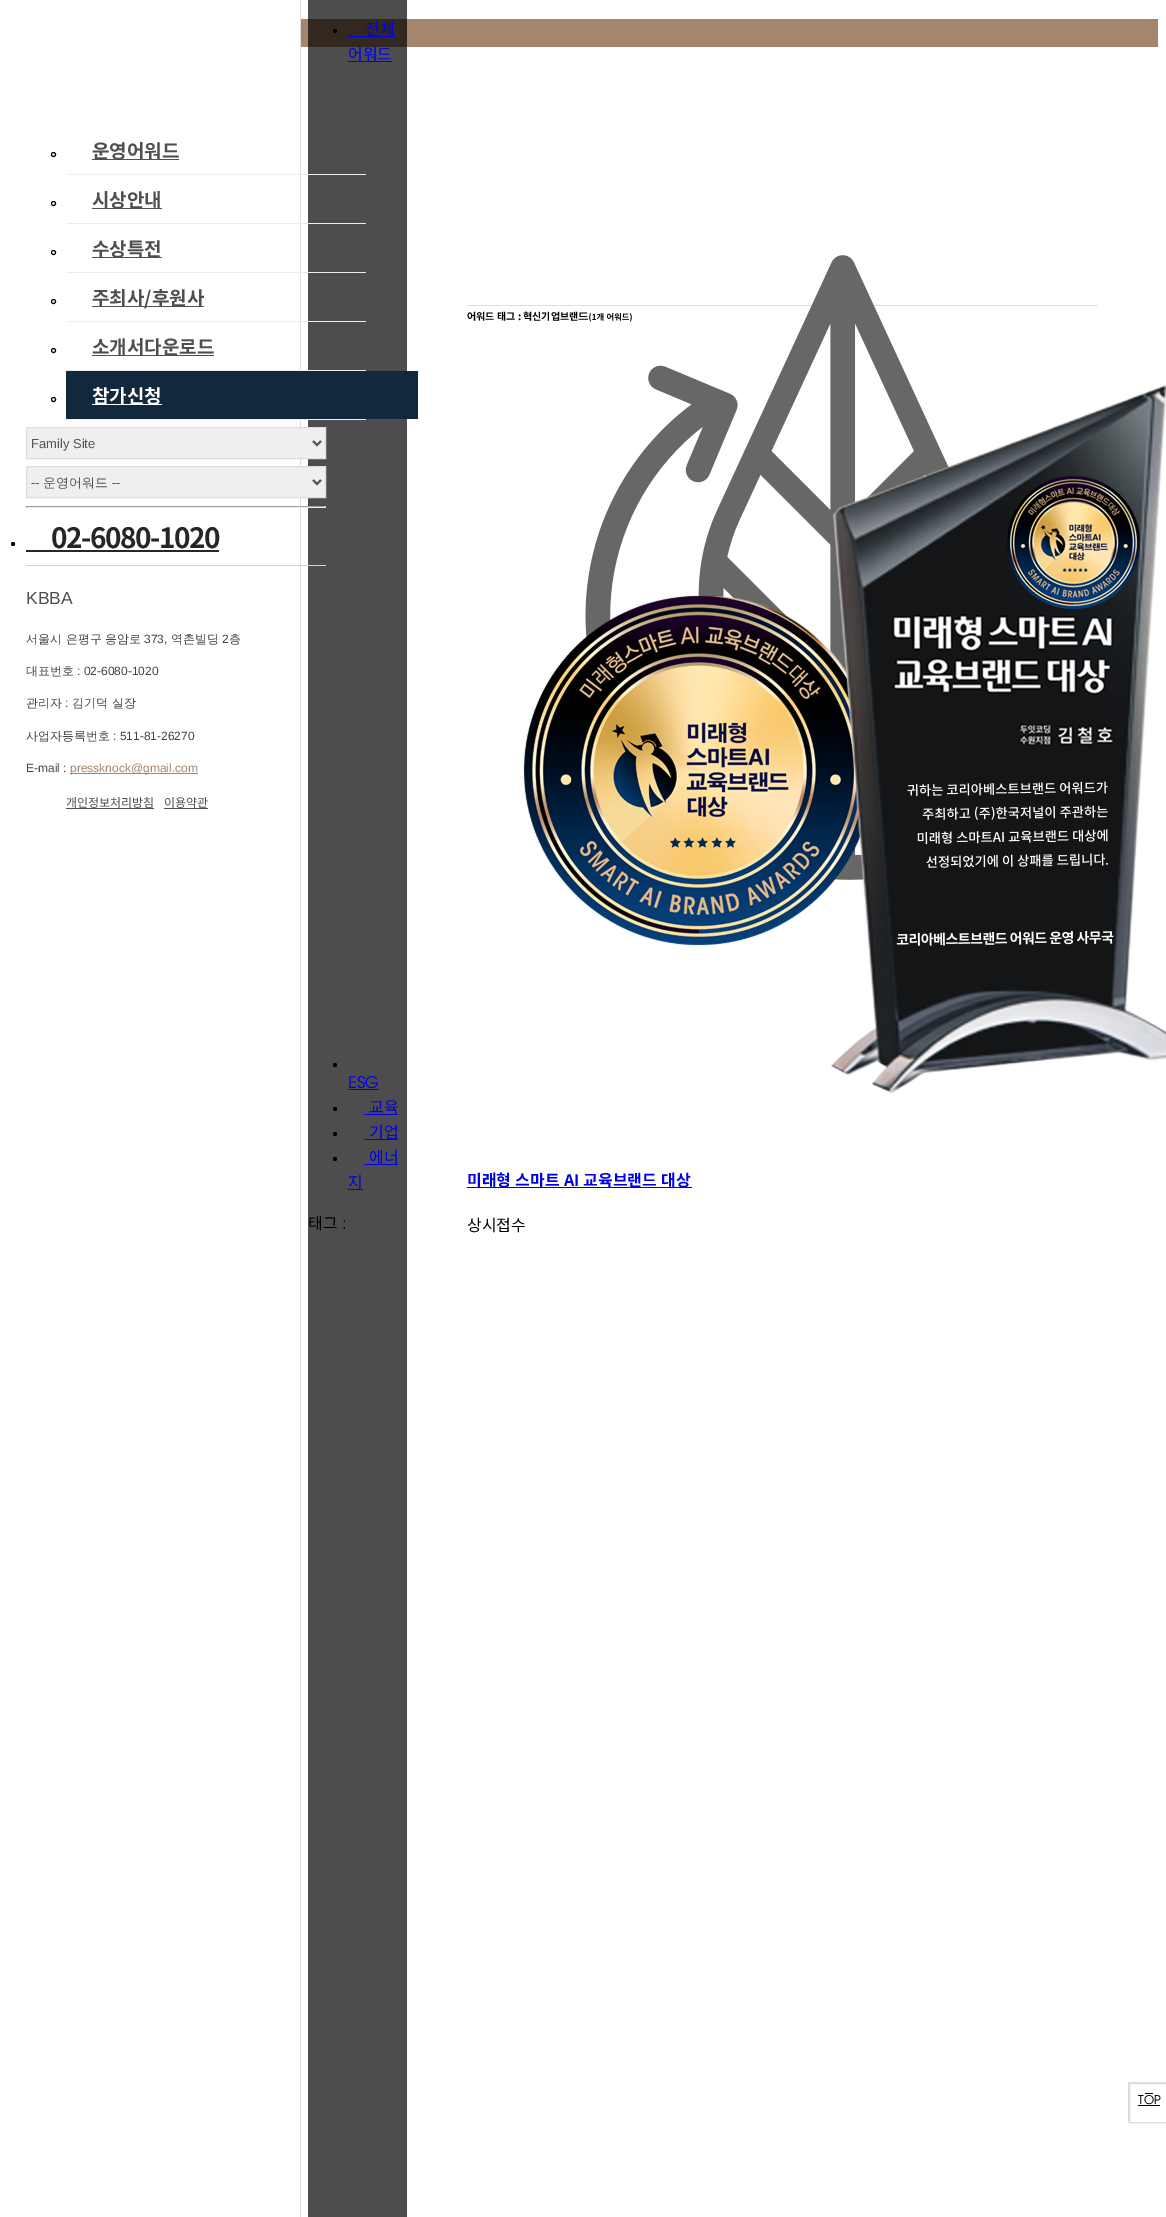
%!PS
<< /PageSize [1166 2217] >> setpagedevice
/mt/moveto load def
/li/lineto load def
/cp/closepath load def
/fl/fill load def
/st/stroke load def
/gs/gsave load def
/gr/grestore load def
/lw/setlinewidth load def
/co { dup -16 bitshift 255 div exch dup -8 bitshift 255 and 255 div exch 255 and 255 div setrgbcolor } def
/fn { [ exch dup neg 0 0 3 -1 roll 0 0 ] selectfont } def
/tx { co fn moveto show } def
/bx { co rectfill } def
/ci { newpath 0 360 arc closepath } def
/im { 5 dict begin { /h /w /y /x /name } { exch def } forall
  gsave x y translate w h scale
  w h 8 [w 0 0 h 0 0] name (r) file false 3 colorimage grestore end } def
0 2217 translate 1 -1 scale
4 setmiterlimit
0 0 1166 2217 16#FFFFFF bx
308 0 99 2217 16#4D4D4D bx
301 19 857 28 16#A5866C bx
308 19 99 28 16#322820 bx
300 0 1 2217 16#DDDDDD bx
66 174 300 1 16#EDEDED bx
16#000000 co
53.5 154.5 2 ci st
92 159 87 1 16#4F4F4F bx
66 223 300 1 16#EDEDED bx
16#000000 co
53.5 203.5 2 ci st
92 208 70 1 16#4F4F4F bx
66 272 300 1 16#EDEDED bx
16#000000 co
53.5 252.5 2 ci st
92 257 70 1 16#4F4F4F bx
66 321 300 1 16#EDEDED bx
16#000000 co
53.5 301.5 2 ci st
92 306 112 1 16#4F4F4F bx
66 370 300 1 16#EDEDED bx
16#000000 co
53.5 350.5 2 ci st
92 355 122 1 16#4F4F4F bx
66 419 300 1 16#EDEDED bx
16#000000 co
53.5 399.5 2 ci st
66 371 352 48 16#12283C bx
92 404 70 1 16#FFFFFF bx
16#EFEFEF co
26.5 427.5 mt 325.5 427.5 li 325.5 458.5 li 26.5 458.5 li cp gs fl gr
16#DDDDDD co
st
16#555555 co
2 lw
313 441 mt 317 445 li 321 441 li st
16#EFEFEF co
26.5 466.5 mt 325.5 466.5 li 325.5 497.5 li 26.5 497.5 li cp gs fl gr
16#DDDDDD co
1 lw
st
16#555555 co
2 lw
313 480 mt 317 484 li 321 480 li st
26 506 300 1 16#9F9F9F bx
325 506 1 2 16#EEEEEE bx
26 507 300 1 16#EEEEEE bx
26 506 1 2 16#9F9F9F bx
16#000000 co
13 544 2 ci fl
26 565 300 1 16#D4D4D4 bx
26 550 193 2 16#262626 bx
70 773 128 1 16#A5866C bx
66 808 88 1 16#4F4F4F bx
164 808 44 1 16#4F4F4F bx
16#000000 co
335 31 2 ci fl
348 36 47 1 16#0000EE bx
348 61 44 1 16#0000EE bx
16#000000 co
335 1065 2 ci fl
348 1089 31 1 16#0000EE bx
16#000000 co
335 1109 2 ci fl
364 1114 34 1 16#0000EE bx
16#000000 co
335 1134 2 ci fl
364 1139 34 1 16#0000EE bx
16#000000 co
335 1159 2 ci fl
364 1164 34 1 16#0000EE bx
348 1189 15 1 16#0000EE bx
467 305 631 1 16#DDDDDD bx
467 1187 225 1 16#0000EE bx
16#DDDDDD co
1 lw
1128.5 2082.5 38 39 rectstroke
1130 2121 36 1 16#FFFFFF bx
16#DDDDDD co
1129.5 2083.5 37 39 rectstroke
1145 2093 8 1 16#000000 bx
1138 2105 22 1 16#000000 bx
(운영어워드) 92 158 /NotoSansKR-Bold 19 16#4F4F4F tx
(시상안내) 92 207 /NotoSansKR-Bold 19 16#4F4F4F tx
(수상특전) 92 256 /NotoSansKR-Bold 19 16#4F4F4F tx
(주최사/후원사) 92 305 /NotoSansKR-Bold 19 16#4F4F4F tx
(소개서다운로드) 92 354 /NotoSansKR-Bold 19 16#4F4F4F tx
(참가신청) 92 403 /NotoSansKR-Bold 19 16#FFFFFF tx
(Family Site) 31 448 /LiberationSans-Regular 13 16#555555 tx
(--) 31 487 /LiberationSans-Regular 13 16#555555 tx
(운영어워드) 43 487 /WenQuanYiZenHei-Medium 13 16#555555 tx
(--) 112 487 /LiberationSans-Regular 13 16#555555 tx
/NotoSansKR-Bold 28 fn
16#262626 co
51 548 mt -1.5 0 (02-6080-1020) ashow
(KBBA) 26 604 /LiberationSans-Regular 17.5 16#4F4F4F tx
(서울시 은평구 응암로) 26 643 /WenQuanYiZenHei-Medium 12 16#444444 tx
(373,) 144 643 /LiberationSans-Regular 12 16#444444 tx
(역촌빌딩) 171 643 /WenQuanYiZenHei-Medium 12 16#444444 tx
(2) 222 643 /LiberationSans-Regular 12 16#444444 tx
(층) 229 643 /WenQuanYiZenHei-Medium 12 16#444444 tx
(대표번호) 26 675 /WenQuanYiZenHei-Medium 12 16#444444 tx
(: 02-6080-1020) 77 675 /LiberationSans-Regular 12 16#444444 tx
(관리자) 26 707 /WenQuanYiZenHei-Medium 12 16#444444 tx
(:) 65 707 /LiberationSans-Regular 12 16#444444 tx
(김기덕 실장) 72 707 /WenQuanYiZenHei-Medium 12 16#444444 tx
(사업자등록번호) 26 740 /WenQuanYiZenHei-Medium 12 16#444444 tx
(: 511-81-26270) 113 740 /LiberationSans-Regular 12 16#444444 tx
(E-mail :) 26 772 /LiberationSans-Regular 12 16#444444 tx
(pressknock@gmail.com) 70 772 /LiberationSans-Regular 12 16#A5866C tx
(개인정보처리방침) 66 807 /NotoSansKR-Regular 12 16#4F4F4F tx
(이용약관) 164 807 /NotoSansKR-Regular 12 16#4F4F4F tx
(전체) 365 35 /NotoSansKR-Regular 16 16#0000EE tx
(어워드) 348 60 /NotoSansKR-Regular 16 16#0000EE tx
(ESG) 348 1088 /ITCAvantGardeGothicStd-Light 16 16#0000EE tx
(교육) 369 1113 /NotoSansKR-Regular 16 16#0000EE tx
(기업) 369 1138 /NotoSansKR-Regular 16 16#0000EE tx
(에너) 369 1163 /NotoSansKR-Regular 16 16#0000EE tx
(지) 348 1188 /NotoSansKR-Regular 16 16#0000EE tx
(태그) 308 1229 /NotoSansKR-Regular 16 16#000000 tx
(:) 342 1229 /ITCAvantGardeGothicStd-Light 16 16#000000 tx
(어워드 태그 : 혁신기업브랜드) 467 320 /NotoSansKR-Bold 10 16#000000 tx
(\(1개 어워드\)) 589 320 /NotoSansKR-Bold 8.25 16#000000 tx
(media/1.raw) 585 255 364 625 im
(media/2.raw) 523 384 643 710 im
/NotoSansKR-Bold 16 fn
16#0000EE co
467 1186 mt .5 0 32 (미래형 스마트 AI 교육브랜드 대상) widthshow
(상시접수) 467 1231 /NotoSansKR-Regular 16 16#000000 tx
(TOP) 1138 2104 /ITCAvantGardeGothicStd-Light 12 16#000000 tx
showpage
